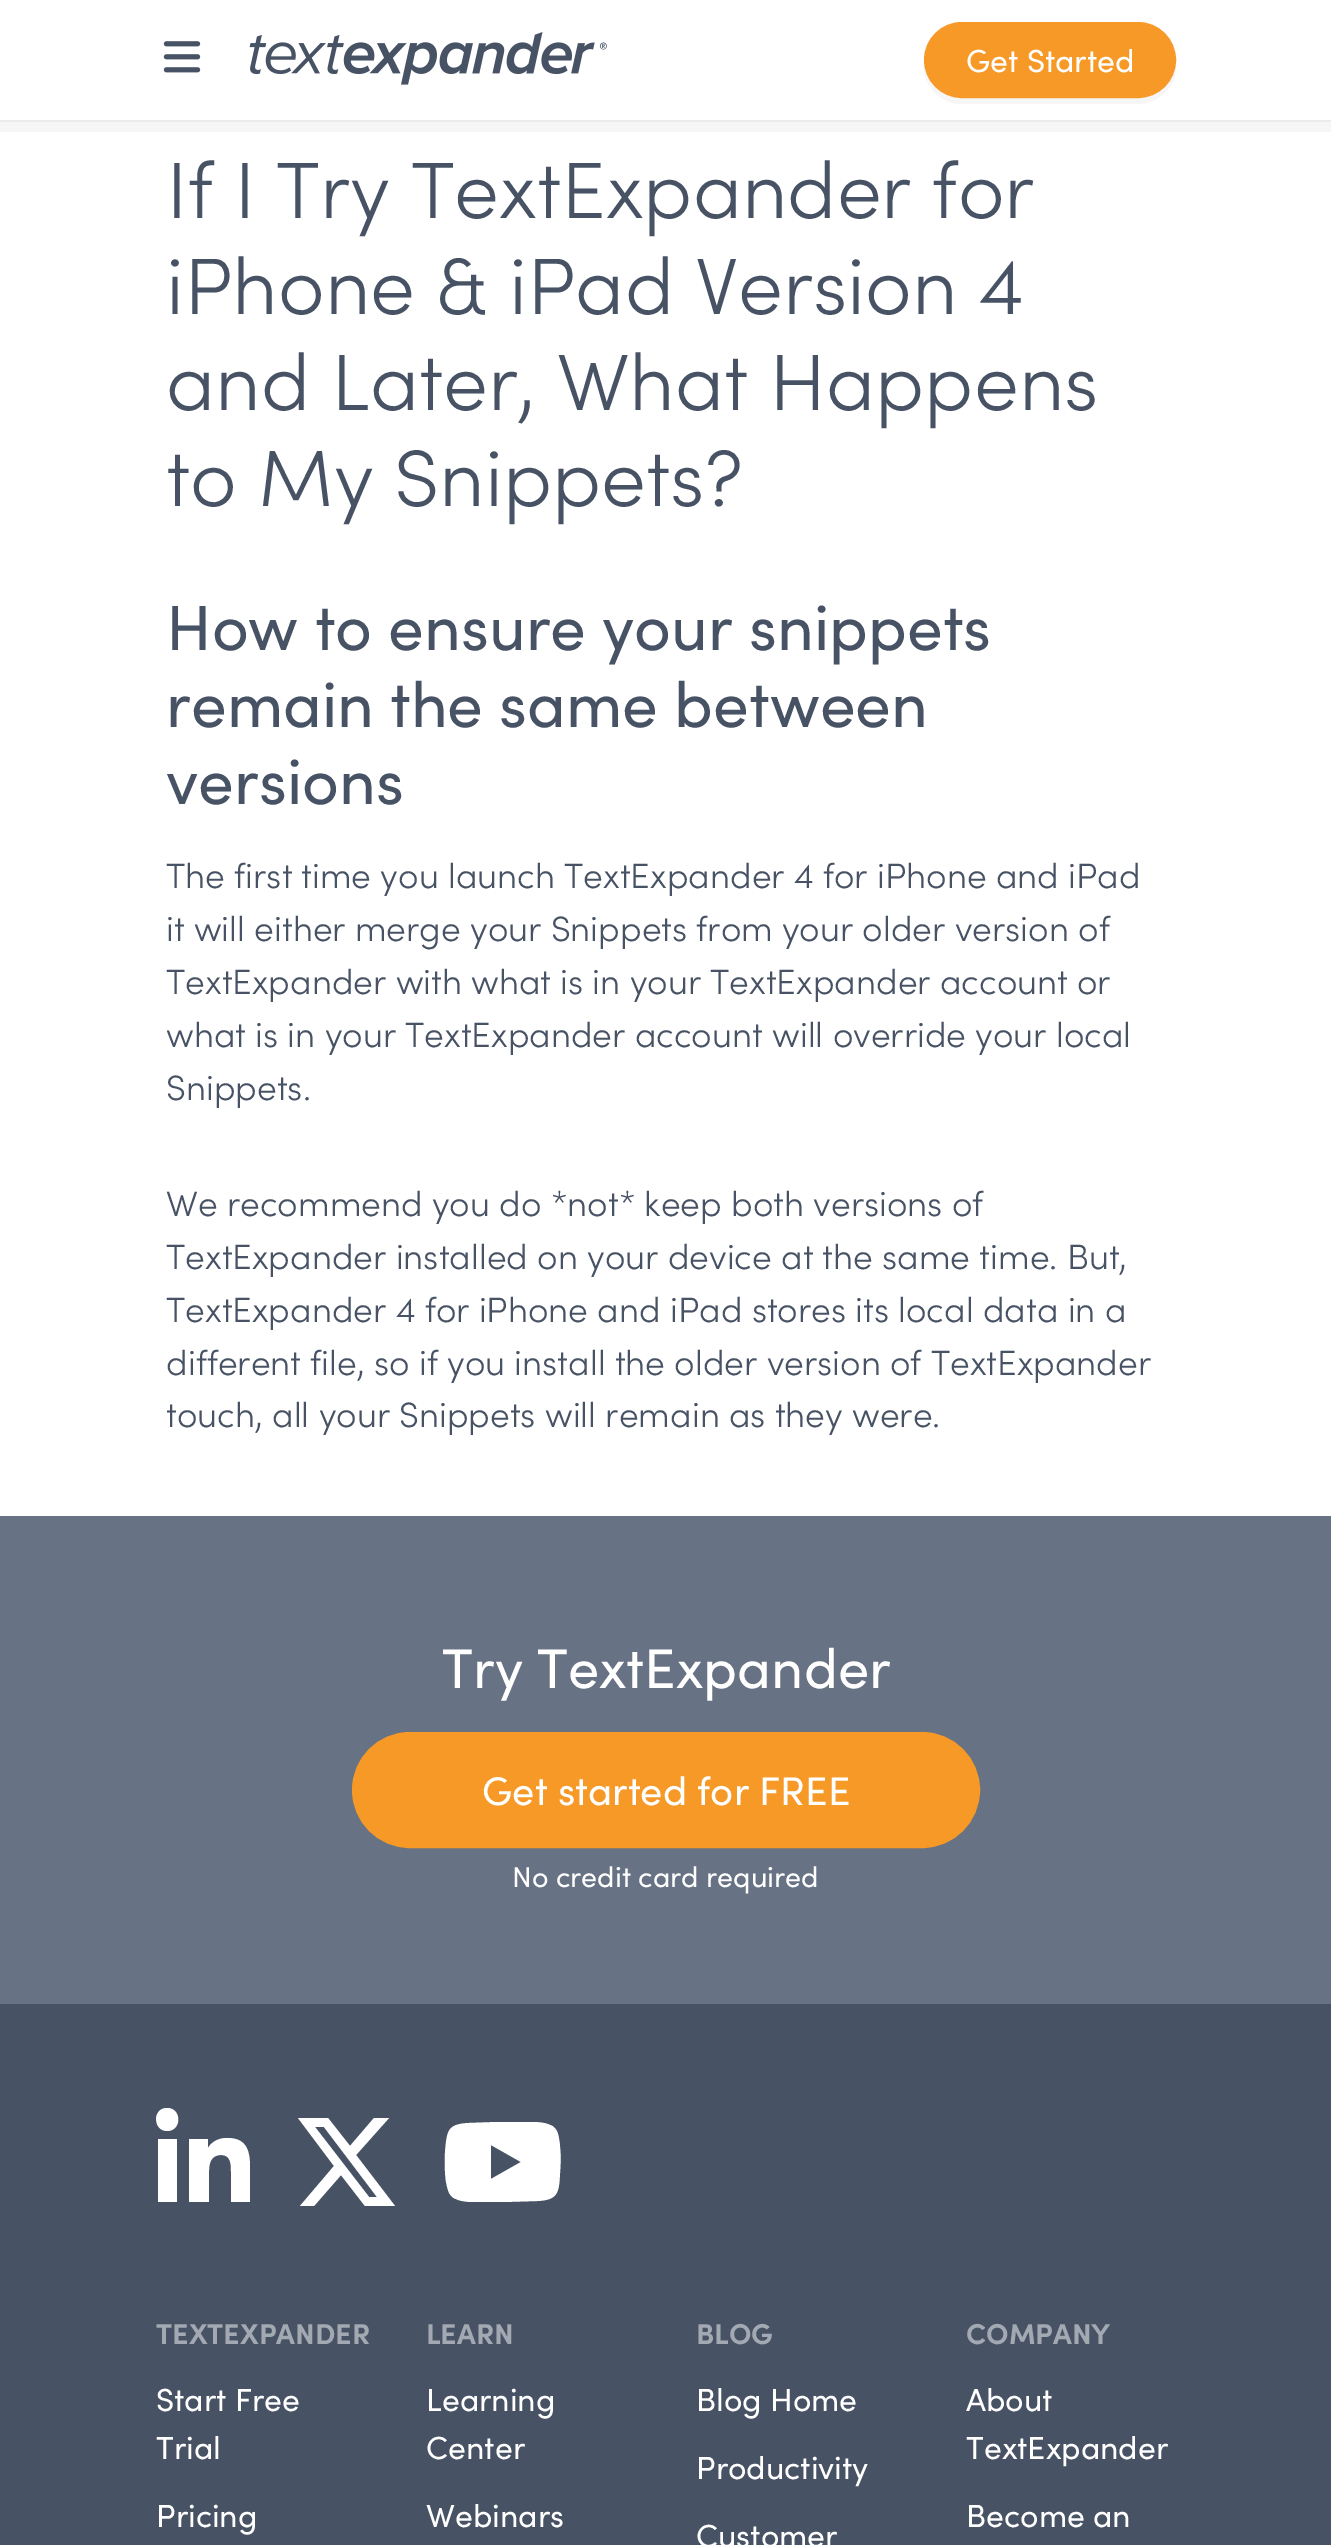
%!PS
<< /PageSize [1331 2545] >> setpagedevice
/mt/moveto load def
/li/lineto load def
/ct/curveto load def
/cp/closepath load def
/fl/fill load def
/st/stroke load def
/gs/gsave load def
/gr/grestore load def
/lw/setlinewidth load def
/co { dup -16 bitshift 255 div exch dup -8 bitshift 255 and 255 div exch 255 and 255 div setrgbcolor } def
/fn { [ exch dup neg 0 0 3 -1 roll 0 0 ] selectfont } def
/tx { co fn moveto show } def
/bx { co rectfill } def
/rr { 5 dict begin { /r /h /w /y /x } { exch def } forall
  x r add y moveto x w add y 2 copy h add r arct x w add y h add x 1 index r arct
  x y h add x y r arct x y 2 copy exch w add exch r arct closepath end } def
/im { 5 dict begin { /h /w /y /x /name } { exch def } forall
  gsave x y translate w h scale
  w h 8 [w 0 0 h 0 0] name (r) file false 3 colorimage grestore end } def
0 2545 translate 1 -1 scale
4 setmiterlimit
0 0 1331 2545 16#FFFFFF bx
0 122 1331 10 16#F6F6F7 bx
0 120 1331 2 16#EAEBEC bx
(media/1.raw) 163 41 38 32 im
(media/2.raw) 249 32 358 53 im
16#F6F6F7 co
924 63 mt 924 66 li 924 87 941 104 962 104 ct 1138 104 li 1159 104 1176 87 1176 66 ct 1176 63 li 1174 83 1158 98 1138 98 ct 962 98 li 942 98 926 83 924 63 ct cp fl
16#F79927 co
925 23 250 74 37 rr gs fl gr
2 lw
st
0 1516 1331 488 16#677284 bx
16#F79927 co
353 1733 626 114 57 rr gs fl gr
st
0 2004 1331 541 16#475264 bx
16#FFFFFF co
177 2202 mt 158 2202 li 158 2139 li 177 2139 li cp 167 2131 mt 153 2131 152 2108 167 2108 ct 182 2108 182 2131 167 2131 ct cp 250 2202 mt 231 2202 li 231 2172 li 231 2164 231 2155 221 2155 ct 211 2155 209 2163 209 2171 ct 209 2202 li 189 2202 li 189 2139 li 208 2139 li 208 2148 li 211 2143 217 2138 227 2138 ct 247 2138 250 2151 250 2168 ct cp fl
374 2118 mt 389 2118 li 356 2155 li 395 2206 li 365 2206 li 341 2175 li 314 2206 li 300 2206 li 334 2166 li 298 2118 li 328 2118 li 350 2146 li cp 369 2197 mt 377 2197 li 324 2127 li 315 2127 li cp fl
558 2134 mt 557 2130 554 2126 550 2125 ct 544 2122 536 2122 530 2122 ct 497 2122 li 469 2123 li 447 2124 447 2131 445 2152 ct 445 2164 444 2178 448 2190 ct 449 2194 452 2198 456 2199 ct 462 2202 470 2202 476 2202 ct 504 2202 li 537 2201 li 558 2200 559 2193 560 2173 ct 561 2160 561 2146 558 2134 ct cp 491 2179 mt 491 2145 li 521 2162 li cp fl
(Get Started) 966 72 /Sofia-Regular 32 16#FFFFFF tx
(If I Try TextExpander for) 166 218 /Sofia-Light 80 16#475264 tx
(iPhone & iPad Version 4) 166 314 /Sofia-Light 80 16#475264 tx
(and Later, What Happens) 166 410 /Sofia-Light 80 16#475264 tx
(to My Snippets?) 166 506 /Sofia-Light 80 16#475264 tx
(How to ensure your snippets) 166 650 /Sofia-Regular 64 16#475264 tx
(remain the same between) 166 727 /Sofia-Regular 64 16#475264 tx
(versions) 166 804 /Sofia-Regular 64 16#475264 tx
(The first time you launch TextExpander 4 for iPhone and iPad) 166 888 /Sofia-Light 35.2 16#475264 tx
(it will either merge your Snippets from your older version of) 166 941 /Sofia-Light 35.2 16#475264 tx
(TextExpander with what is in your TextExpander account or) 166 994 /Sofia-Light 35.2 16#475264 tx
(what is in your TextExpander account will override your local) 166 1047 /Sofia-Light 35.2 16#475264 tx
(Snippets.) 166 1100 /Sofia-Light 35.2 16#475264 tx
(We recommend you do *not* keep both versions of) 166 1216 /Sofia-Light 35.2 16#475264 tx
(TextExpander installed on your device at the same time. But,) 166 1269 /Sofia-Light 35.2 16#475264 tx
(TextExpander 4 for iPhone and iPad stores its local data in a) 166 1322 /Sofia-Light 35.2 16#475264 tx
(different file, so if you install the older version of TextExpander) 166 1375 /Sofia-Light 35.2 16#475264 tx
(touch, all your Snippets will remain as they were.) 166 1427 /Sofia-Light 35.2 16#475264 tx
(Try TextExpander) 442 1688 /Sofia-Regular 56 16#FFFFFF tx
(Get started for FREE) 482 1805 /Sofia-Regular 40 16#FFFFFF tx
(No credit card required) 512 1887 /Sofia-Regular 28.75 16#FFFFFF tx
(TEXTEXPANDER) 156 2344 /Sofia-Bold 28.75 16#A3A9B2 tx
(Start Free) 156 2411 /Sofia-Regular 32 16#FFFFFF tx
(Trial) 156 2459 /Sofia-Regular 32 16#FFFFFF tx
(Pricing) 156 2527 /Sofia-Regular 32 16#FFFFFF tx
(LEARN) 426 2344 /Sofia-Bold 28.75 16#A3A9B2 tx
(Learning) 426 2411 /Sofia-Regular 32 16#FFFFFF tx
(Center) 426 2459 /Sofia-Regular 32 16#FFFFFF tx
(Webinars) 426 2527 /Sofia-Regular 32 16#FFFFFF tx
(BLOG) 696 2344 /Sofia-Bold 28.75 16#A3A9B2 tx
(Blog Home) 696 2411 /Sofia-Regular 32 16#FFFFFF tx
(Productivity) 696 2479 /Sofia-Regular 32 16#FFFFFF tx
(Customer) 696 2547 /Sofia-Regular 32 16#FFFFFF tx
(COMPANY) 966 2344 /Sofia-Bold 28.75 16#A3A9B2 tx
(About) 966 2411 /Sofia-Regular 32 16#FFFFFF tx
(TextExpander) 966 2459 /Sofia-Regular 32 16#FFFFFF tx
(Become an) 966 2527 /Sofia-Regular 32 16#FFFFFF tx
showpage
